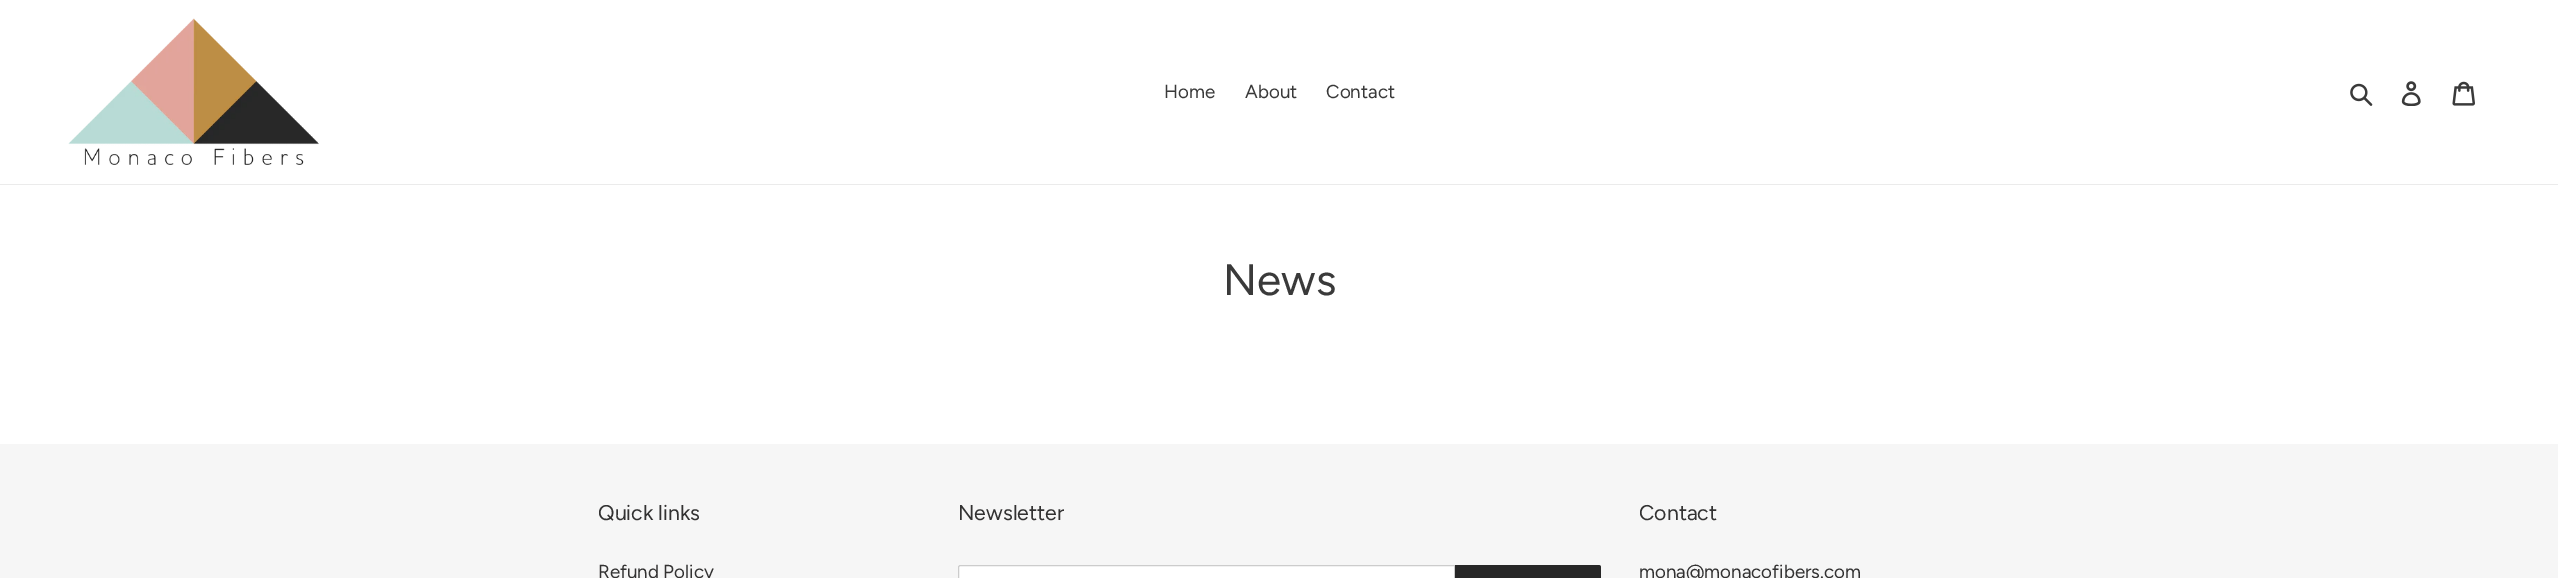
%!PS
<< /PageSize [2558 578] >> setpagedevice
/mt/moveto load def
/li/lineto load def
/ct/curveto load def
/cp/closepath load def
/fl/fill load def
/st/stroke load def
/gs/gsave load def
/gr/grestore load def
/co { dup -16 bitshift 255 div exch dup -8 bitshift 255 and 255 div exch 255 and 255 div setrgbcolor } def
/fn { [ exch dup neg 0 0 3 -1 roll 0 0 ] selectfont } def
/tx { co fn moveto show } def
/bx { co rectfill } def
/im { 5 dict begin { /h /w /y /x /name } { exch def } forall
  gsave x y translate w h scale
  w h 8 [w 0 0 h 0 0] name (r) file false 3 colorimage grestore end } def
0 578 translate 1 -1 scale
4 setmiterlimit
0 0 2558 578 16#FFFFFF bx
0 184 2558 1 16#EBEBEB bx
(media/1.raw) 68 18 251 147 im
(media/2.raw) 2350 83 23 23 im
(media/3.raw) 2401 81 20 25 im
(media/4.raw) 2452 81 23 25 im
0 444 2558 134 16#F6F6F6 bx
16#FFFFFF co
960.5 565.5 mt 1454.5 565.5 li 1454.5 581.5 li 960.5 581.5 li 959.5 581.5 958.5 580.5 958.5 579.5 ct 958.5 567.5 li 958.5 566.5 959.5 565.5 960.5 565.5 ct cp gs fl gr
16#CCCCCC co
st
16#272727 co
1455 565 mt 1598.5 565 li 1600 565 1601 566 1601 567.5 ct 1601 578.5 li 1601 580 1600 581 1598.5 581 ct 1455 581 li cp fl
(Home) 1164 98 /Figtree-Regular 18.75 16#3A3A3A tx
(About) 1245 98 /Figtree-Regular 18.75 16#3A3A3A tx
(Contact) 1326 98 /Figtree-Regular 18.75 16#3A3A3A tx
(News) 1223 295 /Figtree-Regular 44 16#3A3A3A tx
(Quick links) 598 520 /Figtree-Regular 21.25 16#333232 tx
(Refund Policy) 598 578 /Figtree-Regular 18.75 16#333232 tx
(Newsletter) 958 520 /Figtree-Regular 21.25 16#333232 tx
(Contact) 1639 520 /Figtree-Regular 21.25 16#333232 tx
(mona@monacofibers.com) 1639 578 /Figtree-Regular 18.75 16#333232 tx
showpage
